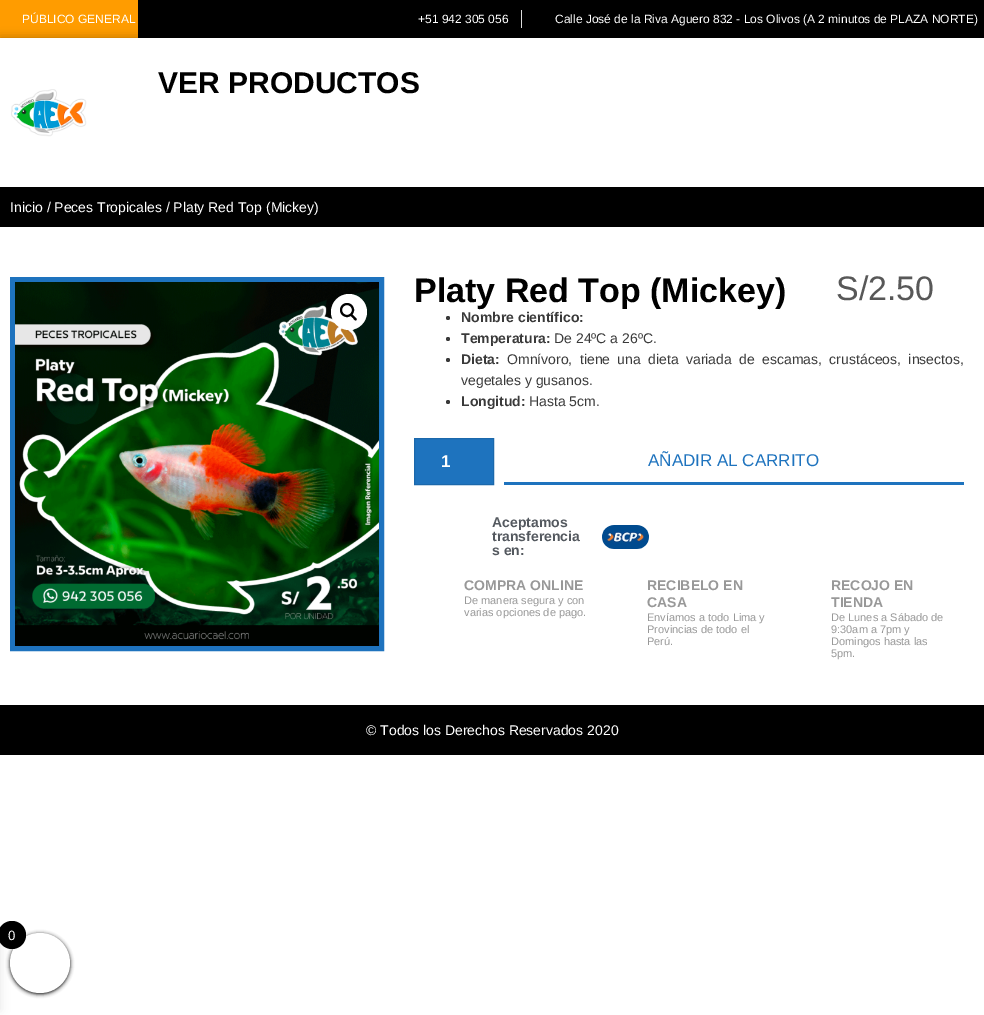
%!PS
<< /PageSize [984 1015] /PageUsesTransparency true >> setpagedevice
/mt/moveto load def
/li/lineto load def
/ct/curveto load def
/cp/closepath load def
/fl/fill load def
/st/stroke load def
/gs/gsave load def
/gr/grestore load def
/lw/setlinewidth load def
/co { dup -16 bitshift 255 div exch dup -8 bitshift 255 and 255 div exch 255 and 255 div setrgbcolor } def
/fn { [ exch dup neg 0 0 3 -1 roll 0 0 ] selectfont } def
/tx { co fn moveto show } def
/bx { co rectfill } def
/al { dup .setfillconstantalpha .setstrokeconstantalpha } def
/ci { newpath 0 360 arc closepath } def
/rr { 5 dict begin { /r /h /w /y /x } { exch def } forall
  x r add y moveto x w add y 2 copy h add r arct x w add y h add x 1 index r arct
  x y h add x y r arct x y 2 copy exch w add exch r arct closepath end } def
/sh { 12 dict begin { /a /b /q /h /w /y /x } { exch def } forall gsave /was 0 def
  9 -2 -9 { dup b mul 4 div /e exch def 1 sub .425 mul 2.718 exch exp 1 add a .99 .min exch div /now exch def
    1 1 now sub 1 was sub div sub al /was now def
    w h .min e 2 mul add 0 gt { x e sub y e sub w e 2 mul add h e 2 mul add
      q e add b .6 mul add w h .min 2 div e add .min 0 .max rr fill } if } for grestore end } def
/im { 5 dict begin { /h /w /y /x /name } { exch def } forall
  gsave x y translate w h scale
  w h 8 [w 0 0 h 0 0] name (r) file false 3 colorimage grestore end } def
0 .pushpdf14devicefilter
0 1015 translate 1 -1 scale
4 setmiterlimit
0 0 984 1015 16#FFFFFF bx
138 0 846 38 16#000000 bx
0 0 138 38 16#FF9C00 bx
521 10 1 18 16#DDDDDD bx
0 187 984 40 16#000000 bx
gs
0 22 mt 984 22 li 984 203 li 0 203 li cp 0 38 mt 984 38 li 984 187 li 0 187 li cp eoclip newpath
0 38 984 149 0 5 .28 sh
gr
(media/1.raw) 11 89 76 48 im
16#1E73BE co
5 lw
12.5 279.5 369 369 rectstroke
(media/2.raw) 15 282 364 364 im
16#FFFFFF co
349 312 18 ci fl
16#000000 co
2 lw
347 310 6 ci st
351 314.5 mt 352 313.5 353.5 316 354.5 316.5 ct 355 317.5 357.5 319 356.5 320 ct 355 321.5 353.5 318.5 353 318 ct 352.5 317.5 349.5 315.5 351 314.5 ct cp fl
16#3A3A3A co
448 318 2 ci fl
448 339 2 ci fl
448 360 2 ci fl
448 402 2 ci fl
16#1E73BE co
414.5 438.5 mt 493.5 438.5 li 493.5 484.5 li 414.5 484.5 li cp gs fl gr
16#1B68AB co
1 lw
st
504 482 460 3 16#1E73BE bx
(media/3.raw) 602 525 47 24 im
0 705 984 50 16#000000 bx
-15 943 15 67 0 5 .1 sh
10 934 60 60 30 2 1 sh
16#FFFFFF co
40 963 30 ci fl
16#000000 co
12 935 14 ci fl
(PÚBLICO GENERAL) 22 23 /LiberationSans-Regular 12 16#FFFFFF tx
(+51 942 305 056) 418 23 /LiberationSans-Regular 12 16#FFFFFF tx
(Calle José de la Riva Aguero 832 - Los Olivos \(A 2 minutos de PLAZA NORTE\)) 555 23 /LiberationSans-Regular 12 16#FFFFFF tx
(VER PRODUCTOS) 158 93 /LiberationSans-Bold 30 16#000000 tx
(Inicio / Peces Tropicales / Platy Red Top \(Mickey\)) 10 212 /LiberationSans-Regular 14 16#FFFFFF tx
(Platy Red Top \(Mickey\)) 414 302 /LiberationSans-Bold 34 16#000000 tx
(S/2.50) 836 300 /LiberationSans-Regular 34 16#585858 tx
(Nombre científico:) 461 322 /LiberationSans-Bold 14 16#3A3A3A tx
(Temperatura:) 461 343 /LiberationSans-Bold 14 16#3A3A3A tx
(De 24ºC a 26ºC.) 554 343 /LiberationSans-Regular 14 16#3A3A3A tx
(Dieta:) 461 364 /LiberationSans-Bold 14 16#3A3A3A tx
/LiberationSans-Regular 14 fn
507 364 mt 3.5 0 32 (Omnívoro, tiene una dieta variada de escamas, crustáceos, insectos,) widthshow
(vegetales y gusanos.) 461 385 /LiberationSans-Regular 14 16#3A3A3A tx
(Longitud:) 461 406 /LiberationSans-Bold 14 16#3A3A3A tx
(Hasta 5cm.) 529 406 /LiberationSans-Regular 14 16#3A3A3A tx
(1) 441 467 /LiberationSans-Bold 17 16#FFFFFF tx
(AÑADIR AL CARRITO) 648 466 /LiberationSans-Regular 17 16#1E73BE tx
(Aceptamos) 492 527 /LiberationSans-Bold 14 16#54595F tx
(transferencia) 492 541 /LiberationSans-Bold 14 16#54595F tx
(s en:) 492 555 /LiberationSans-Bold 14 16#54595F tx
(COMPRA ONLINE) 464 590 /LiberationSans-Bold 14 16#989898 tx
(De manera segura y con) 464 604 /LiberationSans-Regular 11 16#989898 tx
(varias opciones de pago.) 464 616 /LiberationSans-Regular 11 16#989898 tx
(RECIBELO EN) 647 590 /LiberationSans-Bold 14 16#989898 tx
(CASA) 647 607 /LiberationSans-Bold 14 16#989898 tx
(Envíamos a todo Lima y) 647 621 /LiberationSans-Regular 11 16#989898 tx
(Provincias de todo el) 647 633 /LiberationSans-Regular 11 16#989898 tx
(Perú.) 647 645 /LiberationSans-Regular 11 16#989898 tx
(RECOJO EN) 831 590 /LiberationSans-Bold 14 16#989898 tx
(TIENDA) 831 607 /LiberationSans-Bold 14 16#989898 tx
(De Lunes a Sábado de) 831 621 /LiberationSans-Regular 11 16#989898 tx
(9:30am a 7pm y) 831 633 /LiberationSans-Regular 11 16#989898 tx
(Domingos hasta las) 831 645 /LiberationSans-Regular 11 16#989898 tx
(5pm.) 831 657 /LiberationSans-Regular 11 16#989898 tx
(© Todos los Derechos Reservados 2020) 366 735 /LiberationSans-Regular 14 16#FFFFFF tx
(0) 8 940 /NotoSans-Regular 13 16#FFFFFF tx
.poppdf14devicefilter showpage
